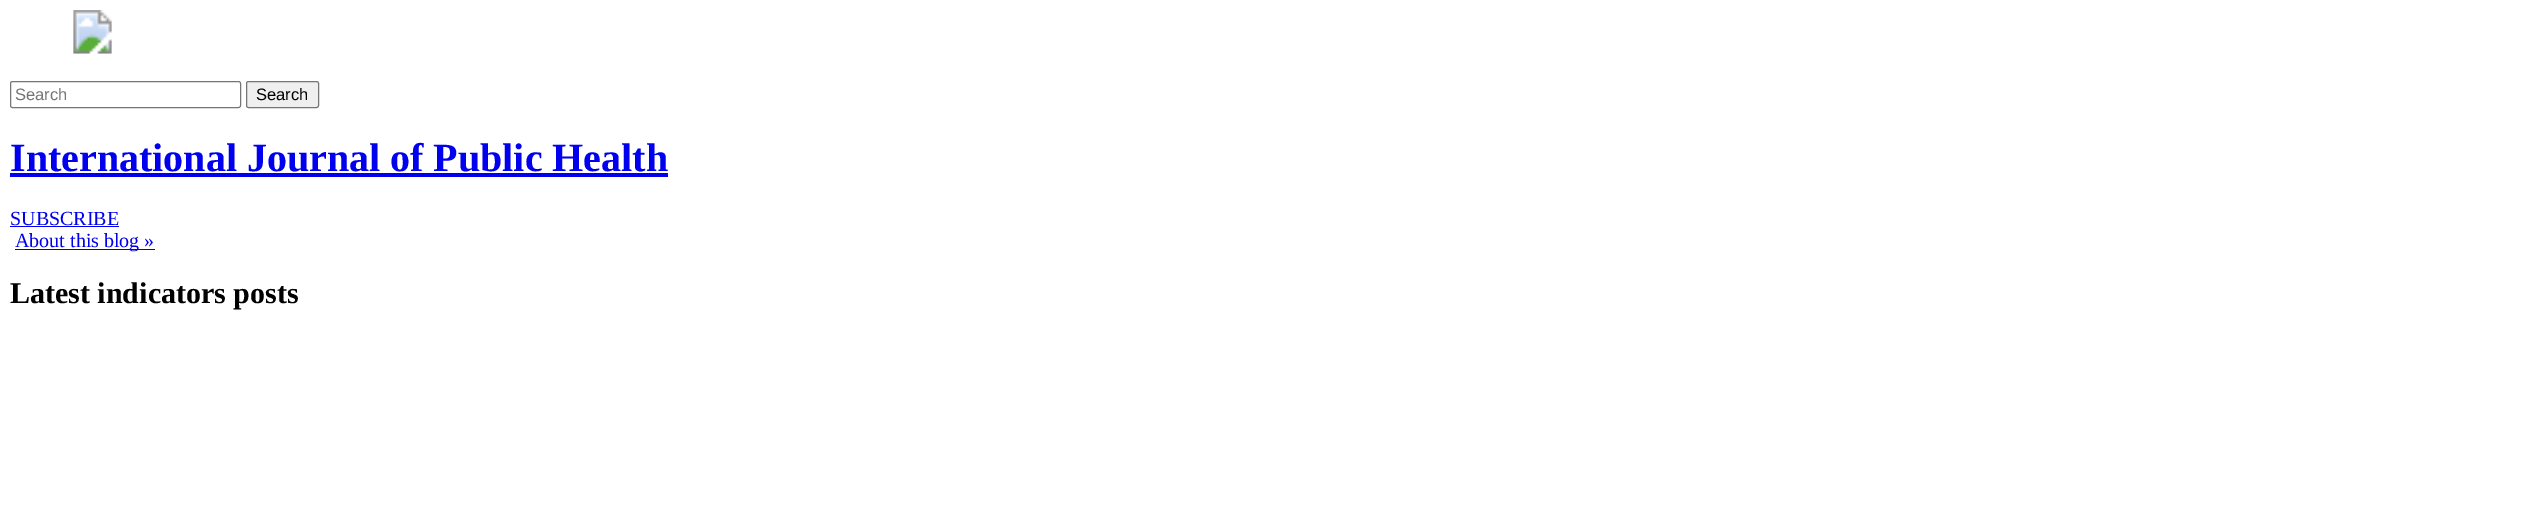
%!PS
<< /PageSize [2530 508] >> setpagedevice
/fl/fill load def
/st/stroke load def
/gs/gsave load def
/gr/grestore load def
/co { dup -16 bitshift 255 div exch dup -8 bitshift 255 and 255 div exch 255 and 255 div setrgbcolor } def
/fn { [ exch dup neg 0 0 3 -1 roll 0 0 ] selectfont } def
/tx { co fn moveto show } def
/bx { co rectfill } def
/rr { 5 dict begin { /r /h /w /y /x } { exch def } forall
  x r add y moveto x w add y 2 copy h add r arct x w add y h add x 1 index r arct
  x y h add x y r arct x y 2 copy exch w add exch r arct closepath end } def
/im { 5 dict begin { /h /w /y /x /name } { exch def } forall
  gsave x y translate w h scale
  w h 8 [w 0 0 h 0 0] name (r) file false 3 colorimage grestore end } def
0 508 translate 1 -1 scale
4 setmiterlimit
0 0 2530 508 16#FFFFFF bx
(media/1.raw) 73 10 39 44 im
16#767676 co
10.5 81.5 230 26 2 rr st
16#EFEFEF co
246.5 81.5 72 26 2 rr gs fl gr
16#767676 co
st
10 173 658 4 16#0000EE bx
10 226 109 1 16#0000EE bx
15 249 140 1 16#0000EE bx
(Search) 15 100 /LiberationSans-Regular 16.5 16#757575 tx
(Search) 256 100 /LiberationSans-Regular 16.5 16#000000 tx
(International Journal of Public Health) 10 171 /LiberationSerif-Bold 40 16#0000EE tx
(SUBSCRIBE) 10 225 /LiberationSerif-Regular 20 16#0000EE tx
(About this blog ») 15 247 /LiberationSerif-Regular 20 16#0000EE tx
(Latest indicators posts) 10 303 /LiberationSerif-Bold 30 16#000000 tx
showpage
